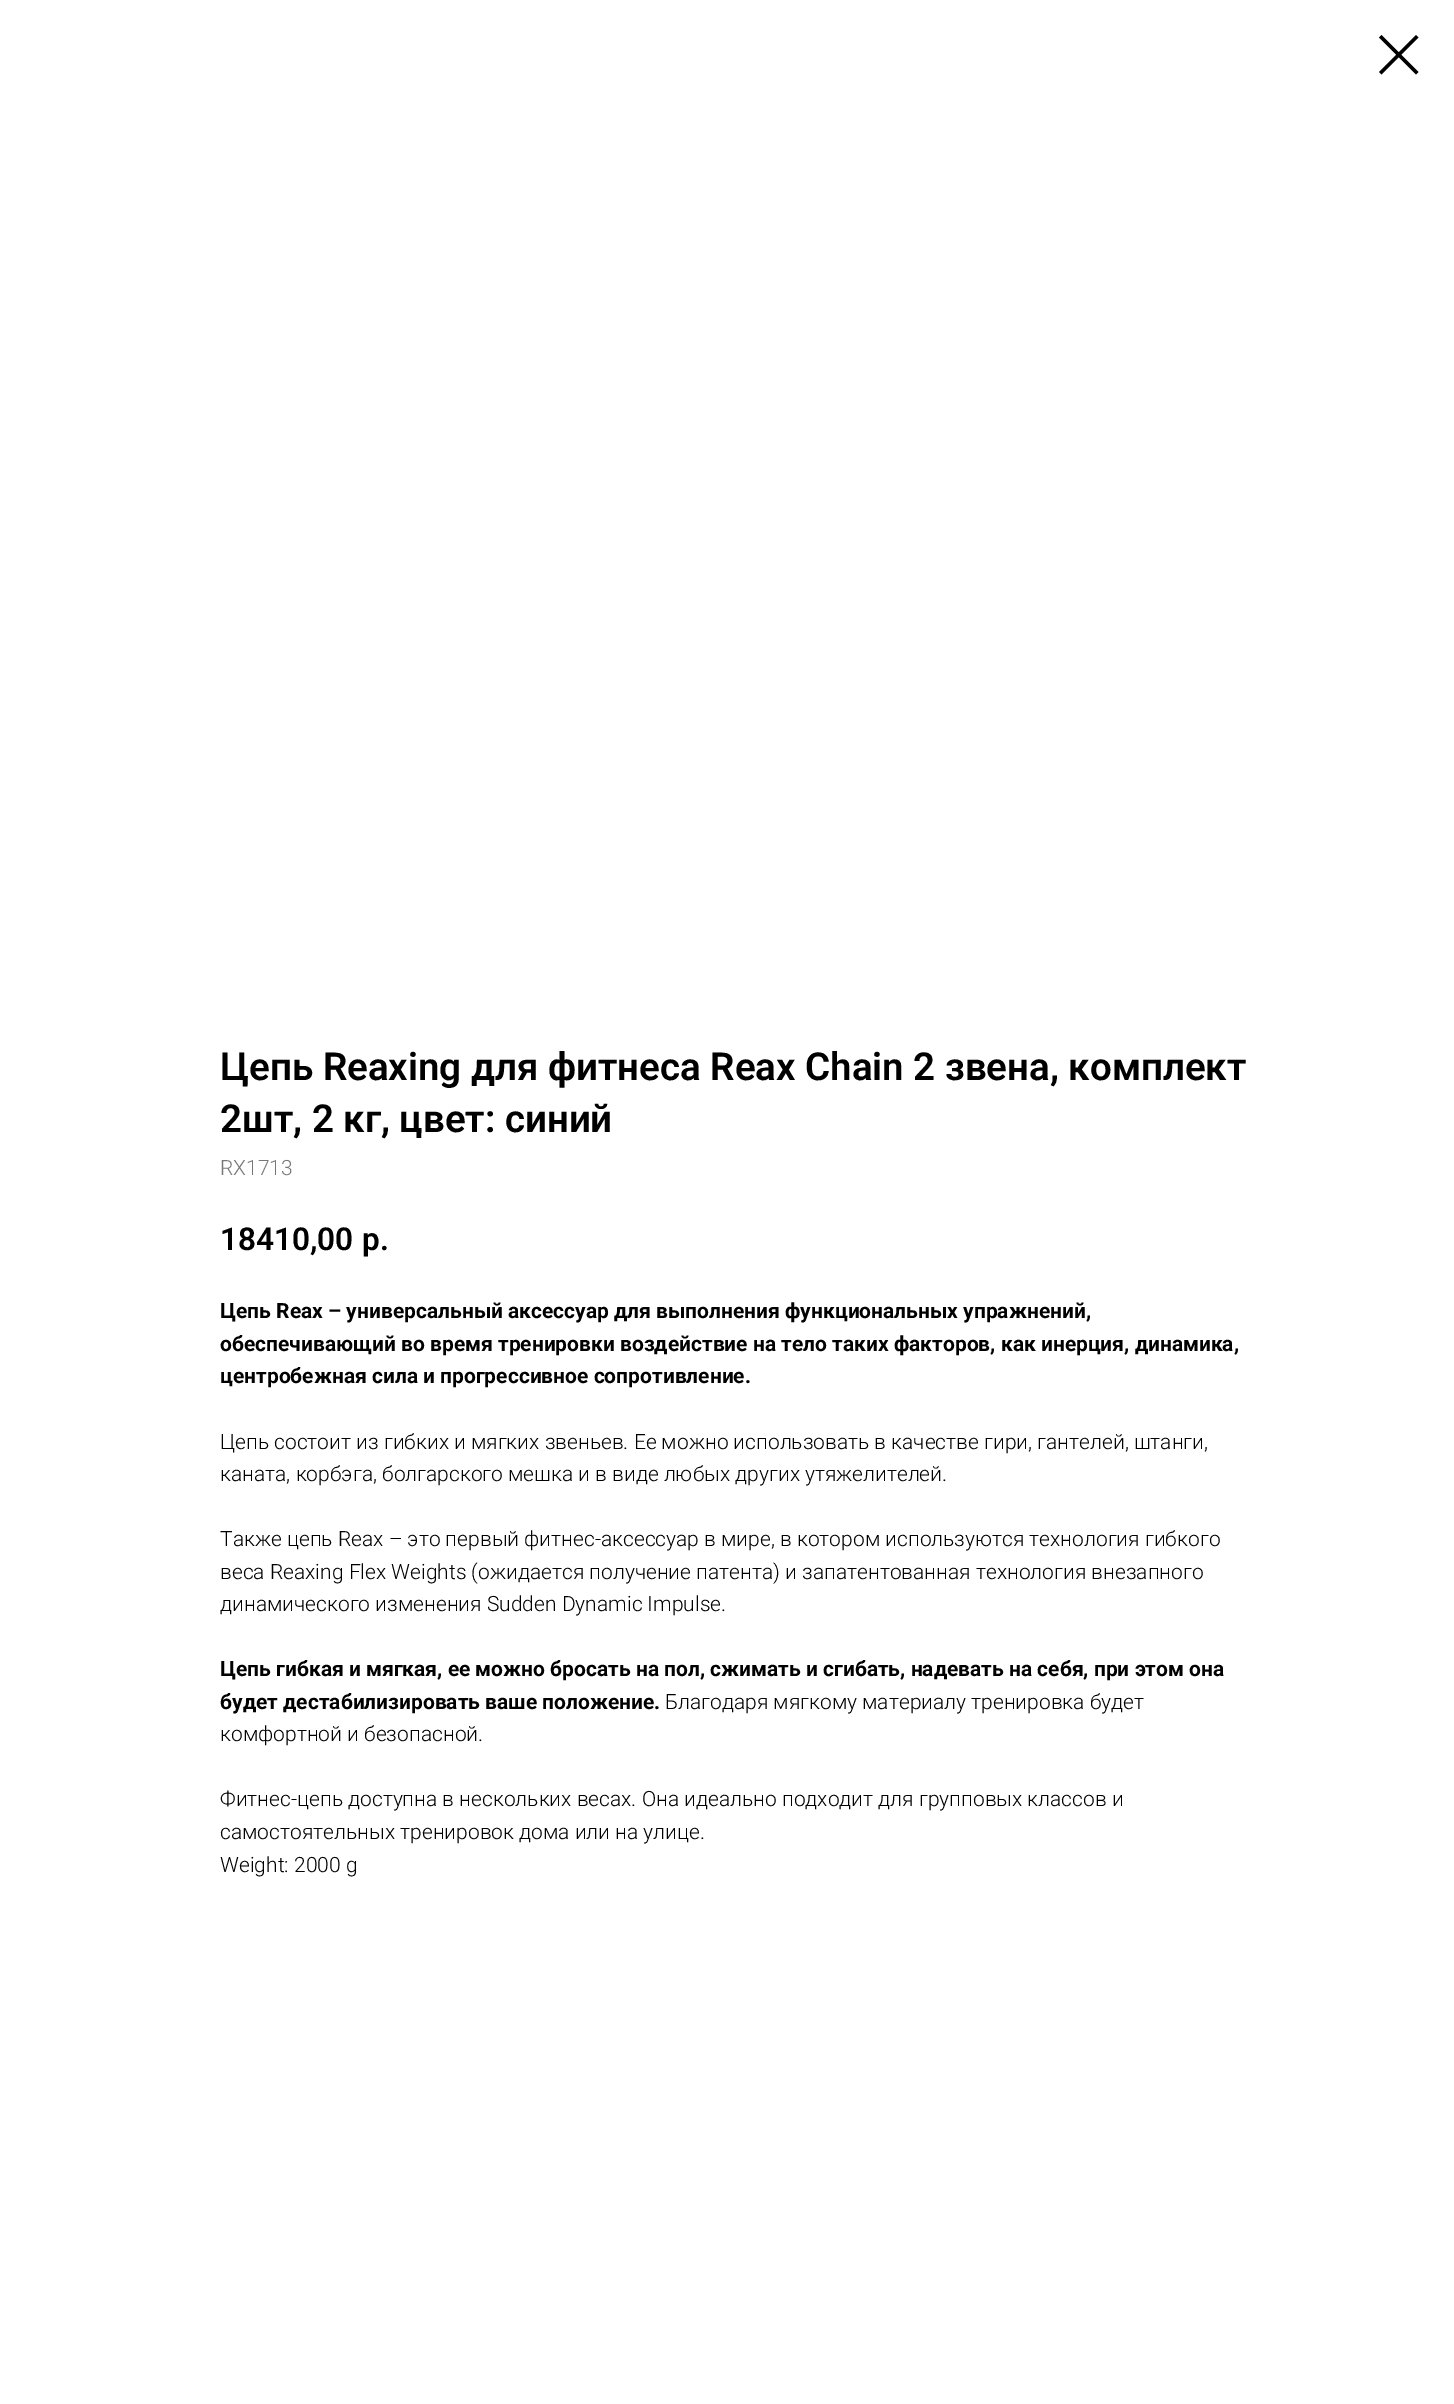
%!PS
<< /PageSize [1454 2404] >> setpagedevice
/mt/moveto load def
/li/lineto load def
/cp/closepath load def
/co { dup -16 bitshift 255 div exch dup -8 bitshift 255 and 255 div exch 255 and 255 div setrgbcolor } def
/fn { [ exch dup neg 0 0 3 -1 roll 0 0 ] selectfont } def
/tx { co fn moveto show } def
/bx { co rectfill } def
0 2404 translate 1 -1 scale
4 setmiterlimit
0 0 1454 2404 16#FFFFFF bx
16#000000 co
1379 37.5 mt 1381.5 35 li 1418.5 72 li 1416 74.5 li cp eofill
1416 35 mt 1418.5 37.5 li 1381.5 74.5 li 1379 72 li cp eofill
(Цепь Reaxing для фитнеса Reax Chain 2 звена, комплект) 220 1080 /Roboto-SemiBold 38.5 16#000000 tx
(2шт, 2 кг, цвет: синий) 220 1132 /Roboto-SemiBold 38.5 16#000000 tx
(RX1713) 220 1175 /Roboto-Light 21 16#777777 tx
(18410,00) 220 1250 /Roboto-SemiBold 31.5 16#000000 tx
(р.) 362 1250 /Roboto-SemiBold 31.5 16#000000 tx
(Цепь Reax – универсальный аксессуар для выполнения функциональных упражнений,) 220 1318 /Roboto-Bold 21 16#000000 tx
(обеспечивающий во время тренировки воздействие на тело таких факторов, как инерция, динамика,) 220 1351 /Roboto-Bold 21 16#000000 tx
(центробежная сила и прогрессивное сопротивление.) 220 1383 /Roboto-Bold 21 16#000000 tx
(Цепь состоит из гибких и мягких звеньев. Ее можно использовать в качестве гири, гантелей, штанги,) 220 1449 /Roboto-Light 21 16#000000 tx
(каната, корбэга, болгарского мешка и в виде любых других утяжелителей.) 220 1481 /Roboto-Light 21 16#000000 tx
(Также цепь Reax – это первый фитнес-аксессуар в мире, в котором используются технология гибкого) 220 1546 /Roboto-Light 21 16#000000 tx
(веса Reaxing Flex Weights \(ожидается получение патента\) и запатентованная технология внезапного) 220 1579 /Roboto-Light 21 16#000000 tx
(динамического изменения Sudden Dynamic Impulse.) 220 1611 /Roboto-Light 21 16#000000 tx
(Цепь гибкая и мягкая, ее можно бросать на пол, сжимать и сгибать, надевать на себя, при этом она) 220 1676 /Roboto-Bold 21 16#000000 tx
(будет дестабилизировать ваше положение.) 220 1709 /Roboto-Bold 21 16#000000 tx
(Благодаря мягкому материалу тренировка будет) 665 1709 /Roboto-Light 21 16#000000 tx
(комфортной и безопасной.) 220 1741 /Roboto-Light 21 16#000000 tx
(Фитнес-цепь доступна в нескольких весах. Она идеально подходит для групповых классов и) 220 1806 /Roboto-Light 21 16#000000 tx
(самостоятельных тренировок дома или на улице.) 220 1839 /Roboto-Light 21 16#000000 tx
(Weight: 2000 g) 220 1872 /Roboto-Light 21 16#000000 tx
showpage
